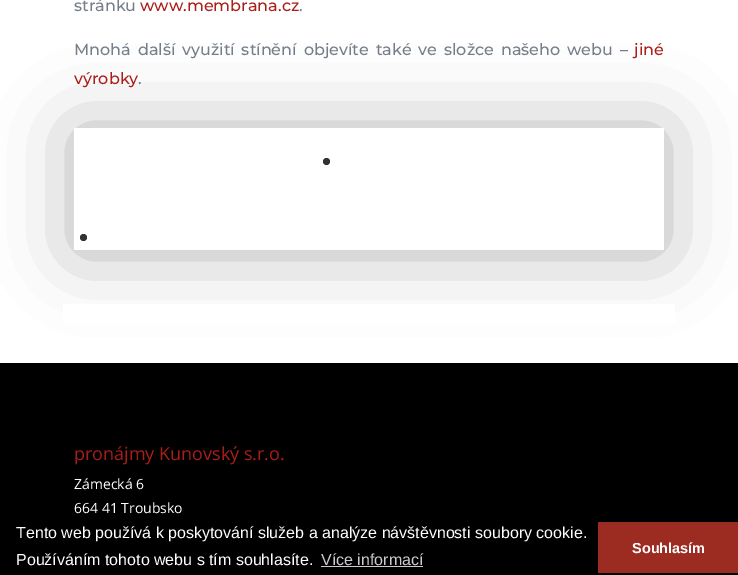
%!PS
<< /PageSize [738 575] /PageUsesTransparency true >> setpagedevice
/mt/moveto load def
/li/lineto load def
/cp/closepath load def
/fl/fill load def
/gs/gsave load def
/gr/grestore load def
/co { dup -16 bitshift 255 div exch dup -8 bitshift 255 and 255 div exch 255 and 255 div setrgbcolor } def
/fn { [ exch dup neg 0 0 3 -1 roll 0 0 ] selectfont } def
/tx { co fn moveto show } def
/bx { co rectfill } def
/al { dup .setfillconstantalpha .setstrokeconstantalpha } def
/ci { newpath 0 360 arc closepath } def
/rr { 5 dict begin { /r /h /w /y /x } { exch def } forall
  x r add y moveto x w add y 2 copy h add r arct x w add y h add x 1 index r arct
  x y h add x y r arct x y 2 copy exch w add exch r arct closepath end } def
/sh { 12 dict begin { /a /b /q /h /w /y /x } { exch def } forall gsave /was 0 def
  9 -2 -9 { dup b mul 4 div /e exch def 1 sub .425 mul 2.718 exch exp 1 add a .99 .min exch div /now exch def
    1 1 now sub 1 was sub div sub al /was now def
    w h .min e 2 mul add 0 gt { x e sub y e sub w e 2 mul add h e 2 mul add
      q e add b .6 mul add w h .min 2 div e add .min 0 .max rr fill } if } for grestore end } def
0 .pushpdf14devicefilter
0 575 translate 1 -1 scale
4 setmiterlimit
0 0 738 575 16#FFFFFF bx
gs
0 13 mt 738 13 li 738 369 li 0 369 li cp 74 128 mt 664 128 li 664 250 li 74 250 li cp eoclip newpath
16#000000 co
74 130 590 122 0 38.5 .3 sh
gr
16#333333 co
326.5 161.5 3.5 ci fl
83.5 237.5 3.5 ci fl
63 304 612 19 16#FFFFFF bx
0 363 738 212 16#000000 bx
321 566 102 1 16#CCCCCC bx
598 522 140 51 16#9C2C21 bx
(stránku) 74 11 /Montserrat-Medium 16 16#747D88 tx
(www.membrana.cz) 140 11 /Montserrat-Medium 16 16#AB1D17 tx
(.) 299 11 /Montserrat-Medium 16 16#747D88 tx
74 55 mt 2.6 0 32 (Mnohá další využití stínění objevíte také ve složce našeho webu –) widthshow
(jiné) 634 55 /Montserrat-Medium 16 16#AB1D17 tx
(výrobky) 74 84 /Montserrat-Medium 16 16#AB1D17 tx
(.) 138 84 /Montserrat-Medium 16 16#747D88 tx
(pronájmy Kunovský s.r.o.) 74 460 /OpenSans-Regular 18 16#AB1D17 tx
(Zámecká 6) 74 489 /OpenSans-Regular 14 16#FFFFFF tx
(664 41 Troubsko) 74 513 /OpenSans-Regular 14 16#FFFFFF tx
(Tento web používá k poskytování služeb a analýze návštěvnosti soubory cookie.) 16 538 /LiberationSans-Regular 16 16#FFFFFF tx
(Používáním tohoto webu s tím souhlasíte.) 16 565 /LiberationSans-Regular 16 16#FFFFFF tx
(Více informací) 321 565 /LiberationSans-Regular 16 16#CCCCCC tx
(Souhlasím) 632 553 /LiberationSans-Bold 14.5 16#FFFFFF tx
.poppdf14devicefilter showpage
